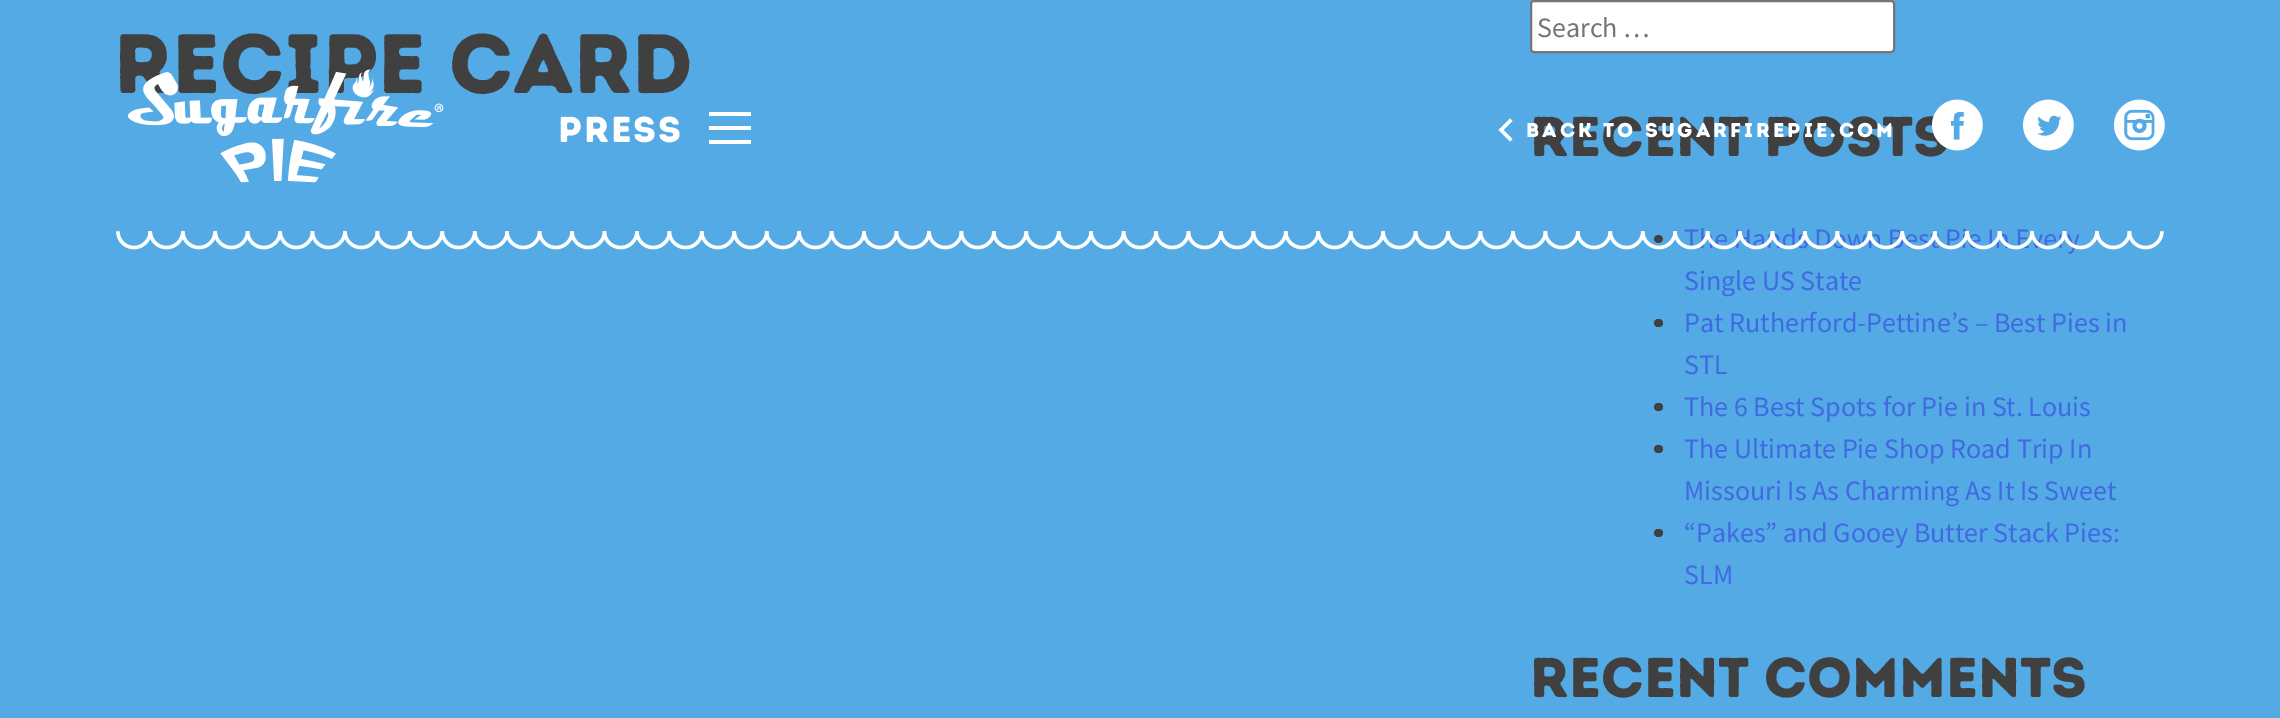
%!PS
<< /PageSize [2280 718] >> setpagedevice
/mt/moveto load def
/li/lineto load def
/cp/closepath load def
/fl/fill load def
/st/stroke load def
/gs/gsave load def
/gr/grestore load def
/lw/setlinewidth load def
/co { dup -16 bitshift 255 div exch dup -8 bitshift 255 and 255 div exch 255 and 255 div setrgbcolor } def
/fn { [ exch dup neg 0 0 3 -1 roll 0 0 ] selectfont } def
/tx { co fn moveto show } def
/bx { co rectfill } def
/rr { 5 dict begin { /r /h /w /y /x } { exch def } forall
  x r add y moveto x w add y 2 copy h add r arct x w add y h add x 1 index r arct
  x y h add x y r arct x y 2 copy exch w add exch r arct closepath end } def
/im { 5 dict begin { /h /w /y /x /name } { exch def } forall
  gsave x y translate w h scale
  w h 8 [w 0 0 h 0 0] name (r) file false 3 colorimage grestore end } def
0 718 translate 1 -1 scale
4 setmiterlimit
0 0 2280 718 16#53AAE5 bx
16#FFFFFF co
1531 1 363 51 3 rr gs fl gr
16#767676 co
2 lw
st
16#404040 co
1654 235 9 8 4 rr fl
1654 319 9 8 4 rr fl
1654 403 9 8 4 rr fl
1654 445 9 8 4 rr fl
1654 529 9 8 4 rr fl
709 126 42 4 16#FFFFFF bx
709 112 42 4 16#FFFFFF bx
709 140 42 4 16#FFFFFF bx
1512.5 139 mt 1510 141.5 li 1498.5 130 li 1510 118.5 li 1512.5 121 li 1503.5 130 li cp fl
(media/3.raw) 2023 99 51 52 im
(media/4.raw) 2114 99 51 52 im
(recipe card) 114 93 /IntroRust-Regular 84 16#404040 tx
(Search …) 1537 37 /SourceSansPro-Regular 28 16#757575 tx
(Recent Posts) 1530 156 /IntroRust-Regular 56 16#404040 tx
(The Hands Down Best Pie In Every) 1684 248 /SourceSansPro-Regular 28 16#4169E1 tx
(Single US State) 1684 290 /SourceSansPro-Regular 28 16#4169E1 tx
(Pat Rutherford-Pettine’s – Best Pies in) 1684 332 /SourceSansPro-Regular 28 16#4169E1 tx
(STL) 1684 374 /SourceSansPro-Regular 28 16#4169E1 tx
(The 6 Best Spots for Pie in St. Louis) 1684 416 /SourceSansPro-Regular 28 16#4169E1 tx
(The Ultimate Pie Shop Road Trip In) 1684 458 /SourceSansPro-Regular 28 16#4169E1 tx
(Missouri Is As Charming As It Is Sweet) 1684 500 /SourceSansPro-Regular 28 16#4169E1 tx
(“Pakes” and Gooey Butter Stack Pies:) 1684 542 /SourceSansPro-Regular 28 16#4169E1 tx
(SLM) 1684 584 /SourceSansPro-Regular 28 16#4169E1 tx
(Recent Comments) 1530 697 /IntroRust-Regular 56 16#404040 tx
(media/1.raw) 127 69 317 114 im
/IntroRust-Regular 36 fn
16#FFFFFF co
558 142 mt 2 0 (PRESS) ashow
/IntroRust-Regular 20 fn
1526 137 mt 3 0 (Back to Sugarfirepie.com) ashow
(media/2.raw) 1932 99 51 52 im
(media/5.raw) 116 231 2048 19 im
showpage
